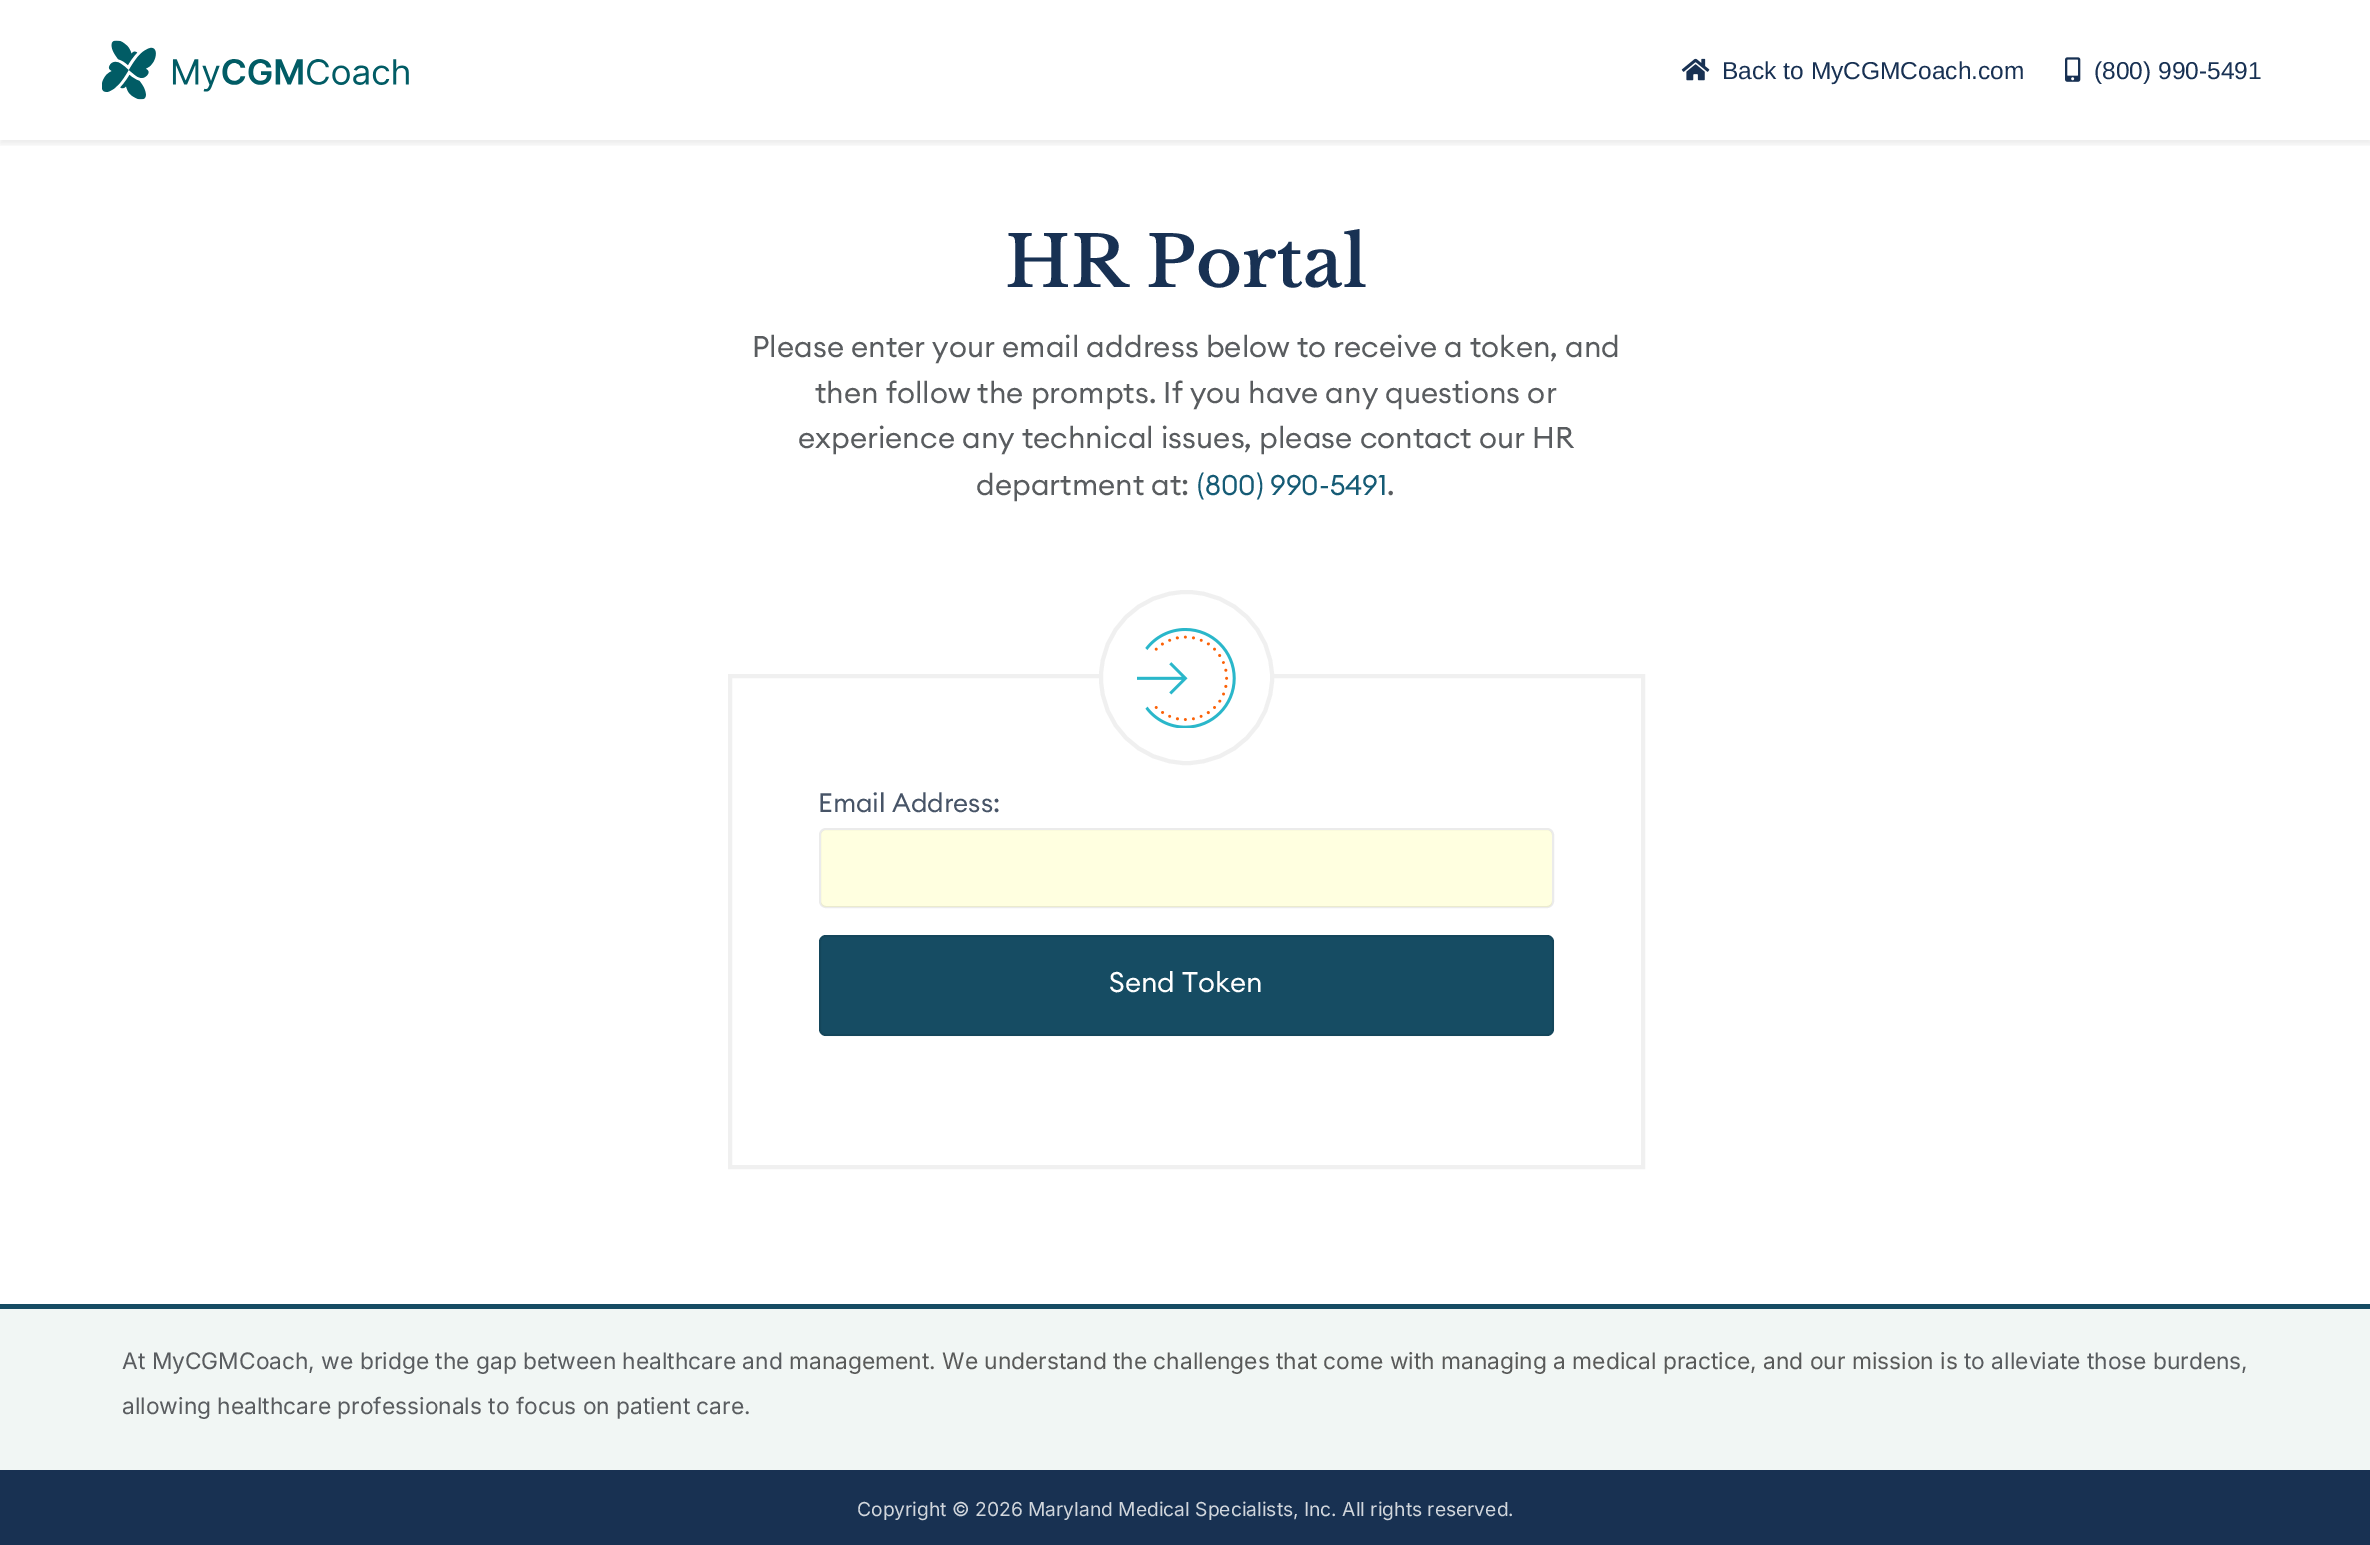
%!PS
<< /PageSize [2370 1545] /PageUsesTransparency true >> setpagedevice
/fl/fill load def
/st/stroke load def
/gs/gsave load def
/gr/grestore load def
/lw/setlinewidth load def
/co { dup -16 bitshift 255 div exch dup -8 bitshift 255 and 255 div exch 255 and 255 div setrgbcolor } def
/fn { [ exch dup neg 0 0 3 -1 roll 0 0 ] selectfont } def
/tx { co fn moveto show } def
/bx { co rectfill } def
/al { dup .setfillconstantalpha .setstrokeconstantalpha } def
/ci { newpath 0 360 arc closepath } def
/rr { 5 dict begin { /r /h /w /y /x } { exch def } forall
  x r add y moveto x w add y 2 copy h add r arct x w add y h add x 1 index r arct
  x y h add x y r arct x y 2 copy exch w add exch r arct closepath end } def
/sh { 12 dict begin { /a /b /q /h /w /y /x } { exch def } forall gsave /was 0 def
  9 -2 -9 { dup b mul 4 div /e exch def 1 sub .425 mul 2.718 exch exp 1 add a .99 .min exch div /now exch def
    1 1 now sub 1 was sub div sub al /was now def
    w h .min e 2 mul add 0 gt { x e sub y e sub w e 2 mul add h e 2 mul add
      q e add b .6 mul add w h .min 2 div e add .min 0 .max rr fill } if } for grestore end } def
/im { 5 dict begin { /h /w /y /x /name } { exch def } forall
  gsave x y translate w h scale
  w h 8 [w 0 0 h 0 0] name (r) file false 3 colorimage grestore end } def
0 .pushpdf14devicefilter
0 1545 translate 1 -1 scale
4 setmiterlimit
0 0 2370 1545 16#FFFFFF bx
gs
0 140 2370 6 rectclip
16#000000 co
0 4 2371 140 0 3.5 .07 sh
gr
(media/1.raw) 102 40 307 60 im
(media/2.raw) 1681 58 29 23 im
(media/3.raw) 2065 57 16 25 im
16#F0F0F0 co
4 lw
730 676 913 491 rectstroke
16#FFFFFF co
1186.5 677.5 85.5 ci gs fl gr
16#F0F0F0 co
st
(media/4.raw) 1137 628 99 100 im
16#FFFFE0 co
821 830 731 77 5 rr fl
0.08 al
16#000000 co
2 lw
820 829 733 78 6 rr st
1 al
16#164C63 co
819 935 735 101 7 rr fl
0.08 al
16#000000 co
820 936 733 99 6 rr st
1 al
0 1309 2370 161 16#F1F6F4 bx
0 1304 2370 5 16#164C63 bx
0 1470 2370 75 16#183152 bx
(Back to MyCGMCoach.com) 1722 79 /LiberationSans-Regular 24.5 16#183153 tx
(\(800\) 990-5491) 2094 79 /LiberationSans-Regular 24.5 16#183153 tx
(HR Portal) 1005 287 /LibreBaskerville-SemiBold 70 16#183153 tx
(Please enter your email address below to receive a token, and) 752 357 /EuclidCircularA-Regular 29.75 16#595C5F tx
(then follow the prompts. If you have any questions or) 815 403 /EuclidCircularA-Regular 29.75 16#595C5F tx
(experience any technical issues, please contact our HR) 798 448 /EuclidCircularA-Regular 29.75 16#595C5F tx
(department at:) 976 495 /EuclidCircularA-Regular 29.75 16#595C5F tx
(\(800\) 990-5491) 1197 495 /EuclidCircularA-Regular 28 16#155B75 tx
(.) 1387 495 /EuclidCircularA-Regular 29.75 16#595C5F tx
(Email Address:) 818 812 /EuclidCircularA-Regular 26.25 16#475467 tx
(Send Token) 1109 992 /EuclidCircularA-Regular 28 16#FFFFFF tx
(At MyCGMCoach, we bridge the gap between healthcare and) 122 1369 /Inter-Regular 22.75 16#595C5F tx
(management. We understand the challenges that come with managing a medical practice, and our mission is) 789 1369 /Inter-Regular 22.75 16#595A59 tx
(to alleviate those burdens,) 1964 1369 /Inter-Regular 22.75 16#595C5F tx
(allowing healthcare professionals to focus on patient care.) 122 1414 /Inter-Regular 22.75 16#595C5F tx
(Copyright © 2026 Maryland Medical Specialists, Inc. All rights reserved.) 857 1516 /Inter-Regular 19.25 16#D1D6DC tx
.poppdf14devicefilter showpage
